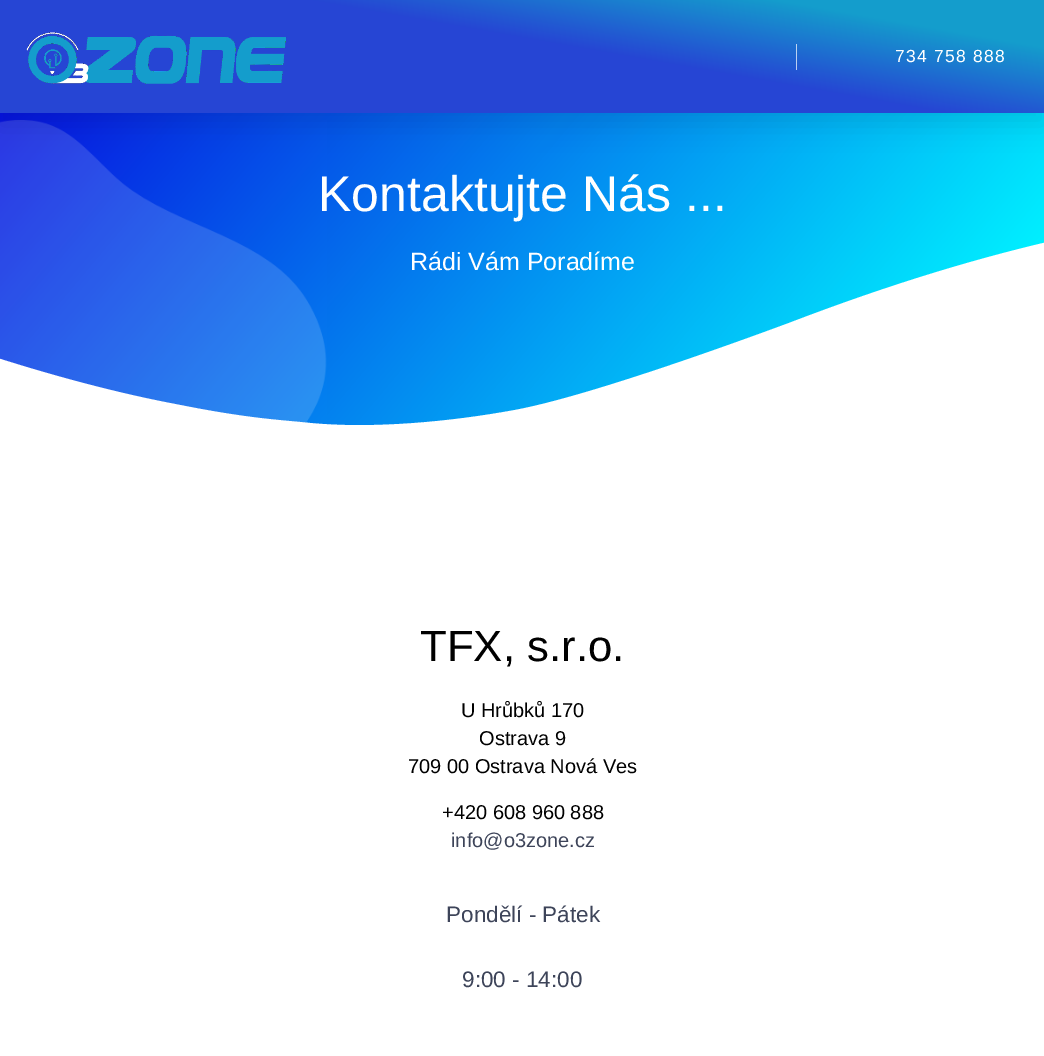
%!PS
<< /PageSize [1044 1056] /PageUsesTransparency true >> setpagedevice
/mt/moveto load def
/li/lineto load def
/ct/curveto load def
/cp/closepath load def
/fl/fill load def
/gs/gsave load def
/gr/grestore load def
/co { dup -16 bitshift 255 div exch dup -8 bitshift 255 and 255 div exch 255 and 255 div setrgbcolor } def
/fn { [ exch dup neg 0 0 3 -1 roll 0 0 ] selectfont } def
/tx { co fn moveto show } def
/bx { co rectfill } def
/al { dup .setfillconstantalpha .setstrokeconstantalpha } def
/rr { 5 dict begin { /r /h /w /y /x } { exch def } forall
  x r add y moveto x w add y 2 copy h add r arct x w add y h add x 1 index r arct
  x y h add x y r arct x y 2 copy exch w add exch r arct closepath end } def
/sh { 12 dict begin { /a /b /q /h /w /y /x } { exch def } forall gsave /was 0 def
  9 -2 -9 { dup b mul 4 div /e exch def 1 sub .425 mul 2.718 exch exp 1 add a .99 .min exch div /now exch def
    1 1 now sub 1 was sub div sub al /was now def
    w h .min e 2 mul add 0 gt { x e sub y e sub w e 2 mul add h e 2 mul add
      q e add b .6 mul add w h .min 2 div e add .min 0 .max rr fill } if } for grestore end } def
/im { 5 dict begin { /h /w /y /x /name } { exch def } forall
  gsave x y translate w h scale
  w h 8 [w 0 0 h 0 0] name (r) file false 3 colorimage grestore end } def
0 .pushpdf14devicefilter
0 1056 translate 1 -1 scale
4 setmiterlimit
0 0 1044 1056 16#FFFFFF bx
gs 0 113 mt 1044 113 li 1044 426 li 0 426 li cp clip newpath
<< /ShadingType 2 /ColorSpace /DeviceRGB /Coords [108 -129 937 566] /Extend [true true] /Function << /FunctionType 3 /Domain [0 1] /Functions [<< /FunctionType 2 /Domain [0 1] /C0 [.027 0 .867] /C1 [0 .949 1] /N 1 >> << /FunctionType 2 /Domain [0 1] /C0 [0 .949 1] /C1 [0 .949 1] /N 1 >>] /Bounds [.89] /Encode [0 1 0 1] >> >> shfill gr
(media/2.raw) 0 120 327 303 im
16#000000 co
0 13 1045 112 0 12.5 .1 sh
gs 0 0 mt 1044 0 li 1044 113 li 0 113 li cp clip newpath
<< /ShadingType 2 /ColorSpace /DeviceRGB /Coords [497 200 548 -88] /Extend [true true] /Function << /FunctionType 3 /Domain [0 1] /Functions [<< /FunctionType 2 /Domain [0 1] /C0 [.149 .271 .831] /C1 [.149 .271 .831] /N 1 >> << /FunctionType 2 /Domain [0 1] /C0 [.149 .271 .831] /C1 [.078 .616 .8] /N 1 >> << /FunctionType 2 /Domain [0 1] /C0 [.078 .616 .8] /C1 [.078 .616 .8] /N 1 >>] /Bounds [.56 .84] /Encode [0 1 0 1 0 1] >> >> shfill gr
gs 796 44 mt 797 44 li 797 70 li 796 70 li cp clip newpath
<< /ShadingType 2 /ColorSpace /DeviceRGB /Coords [497 200 548 -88] /Extend [true true] /Function << /FunctionType 3 /Domain [0 1] /Functions [<< /FunctionType 2 /Domain [0 1] /C0 [.745 .78 .949] /C1 [.745 .78 .949] /N 1 >> << /FunctionType 2 /Domain [0 1] /C0 [.745 .78 .949] /C1 [.725 .886 .941] /N 1 >> << /FunctionType 2 /Domain [0 1] /C0 [.725 .886 .941] /C1 [.725 .886 .941] /N 1 >>] /Bounds [.56 .84] /Encode [0 1 0 1 0 1] >> >> shfill gr
(media/1.raw) 26 32 261 52 im
16#FFFFFF co
310 423 mt 372 429 450 422 515 410 ct 580 398 708 353 789 323 ct 995 244 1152 214 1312 202 ct 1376 197 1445 193 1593 208 ct 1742 223 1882 270 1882 270 ct 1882 439 li -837 439 li -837 365 li -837 365 -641 285 -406 291 ct -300 292 -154 307 -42 345 ct 16 365 100 390 175 404 ct 249 419 282 420 310 423 ct cp fl
/LiberationSans-Regular 17.5 fn
895 62 mt 1.25 0 (734 758 888) ashow
(Kontaktujte Nás ...) 318 211 /LiberationSans-Regular 50 16#FFFFFF tx
(Rádi Vám Poradíme) 410 270 /LiberationSans-Regular 25 16#FFFFFF tx
(TFX, s.r.o.) 420 661 /LiberationSans-Regular 43.75 16#000000 tx
(U Hrůbků 170) 461 717 /LiberationSans-Regular 20 16#000000 tx
(Ostrava 9) 479 745 /LiberationSans-Regular 20 16#000000 tx
(709 00 Ostrava Nová Ves) 408 773 /LiberationSans-Regular 20 16#000000 tx
(+420 608 960 888) 442 819 /LiberationSans-Regular 20 16#000000 tx
(info@o3zone.cz) 451 847 /LiberationSans-Regular 20 16#3D4459 tx
(Pondělí - Pátek) 446 922 /LiberationSans-Regular 22.5 16#3D4459 tx
(9:00 - 14:00) 462 987 /LiberationSans-Regular 22.5 16#3D4459 tx
.poppdf14devicefilter showpage
